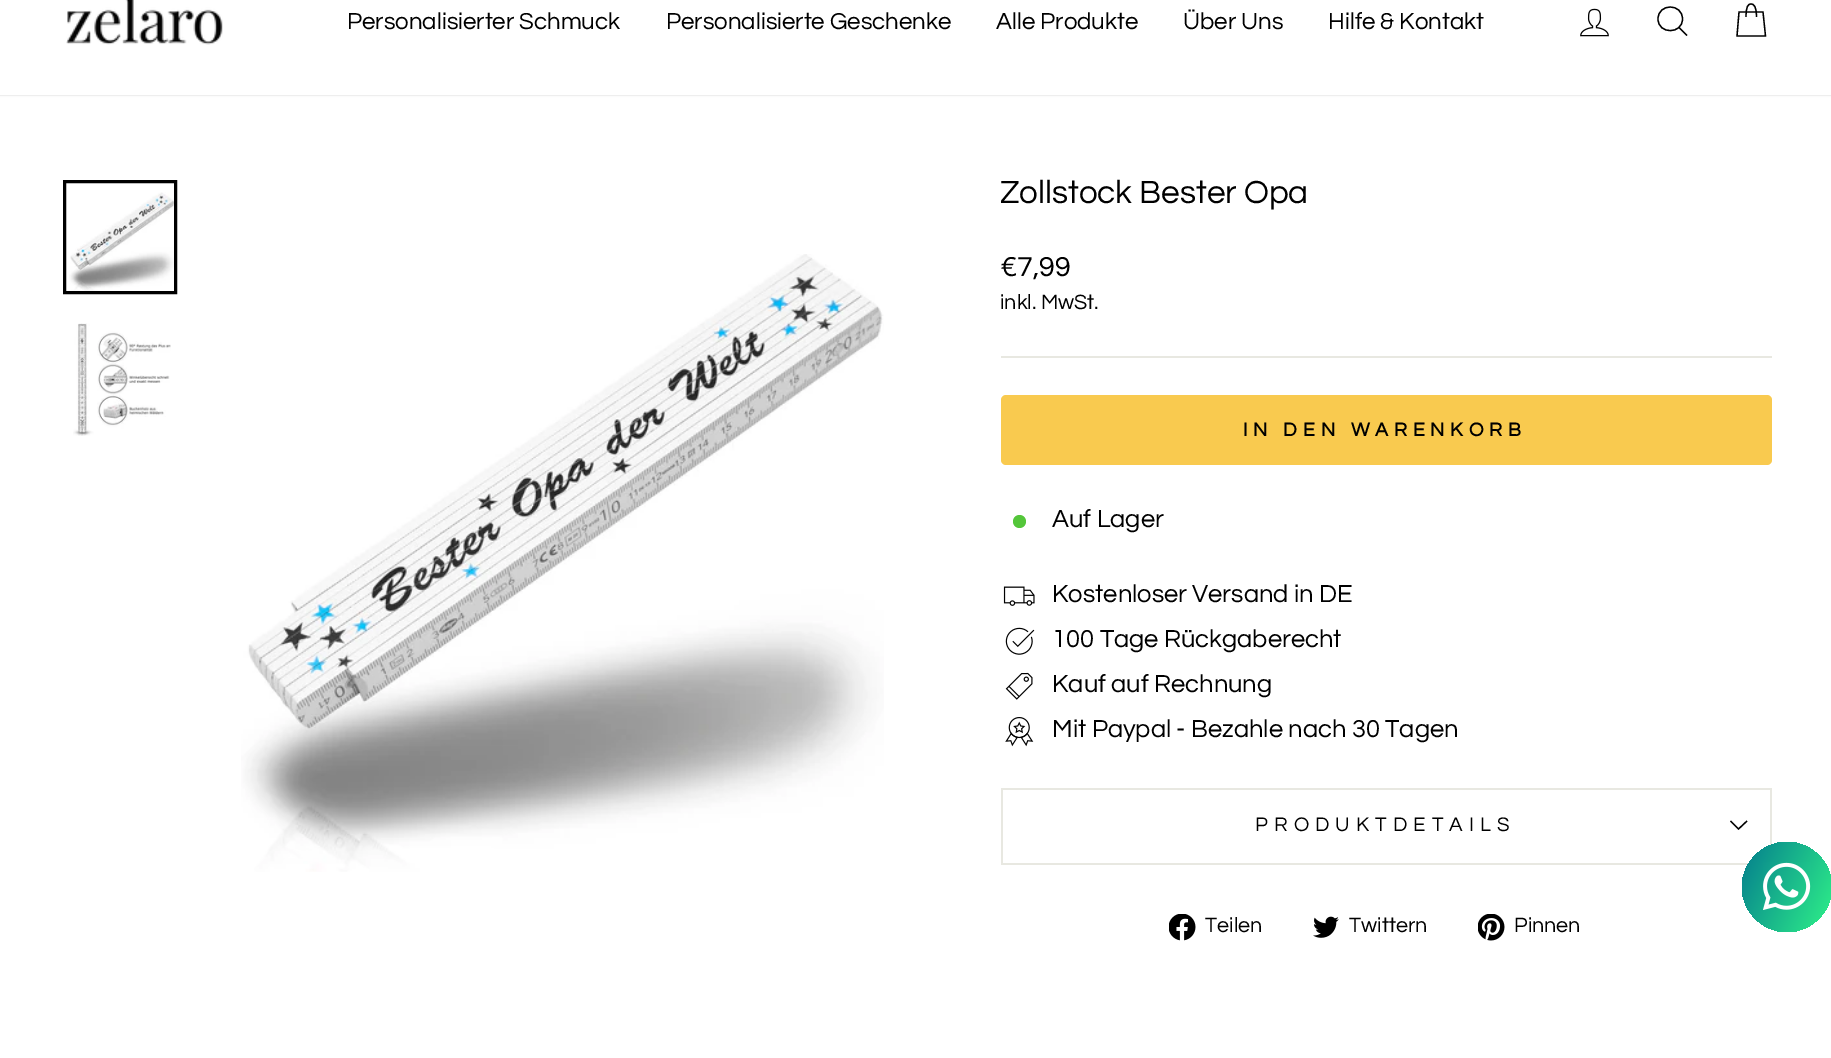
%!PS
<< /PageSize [1831 1058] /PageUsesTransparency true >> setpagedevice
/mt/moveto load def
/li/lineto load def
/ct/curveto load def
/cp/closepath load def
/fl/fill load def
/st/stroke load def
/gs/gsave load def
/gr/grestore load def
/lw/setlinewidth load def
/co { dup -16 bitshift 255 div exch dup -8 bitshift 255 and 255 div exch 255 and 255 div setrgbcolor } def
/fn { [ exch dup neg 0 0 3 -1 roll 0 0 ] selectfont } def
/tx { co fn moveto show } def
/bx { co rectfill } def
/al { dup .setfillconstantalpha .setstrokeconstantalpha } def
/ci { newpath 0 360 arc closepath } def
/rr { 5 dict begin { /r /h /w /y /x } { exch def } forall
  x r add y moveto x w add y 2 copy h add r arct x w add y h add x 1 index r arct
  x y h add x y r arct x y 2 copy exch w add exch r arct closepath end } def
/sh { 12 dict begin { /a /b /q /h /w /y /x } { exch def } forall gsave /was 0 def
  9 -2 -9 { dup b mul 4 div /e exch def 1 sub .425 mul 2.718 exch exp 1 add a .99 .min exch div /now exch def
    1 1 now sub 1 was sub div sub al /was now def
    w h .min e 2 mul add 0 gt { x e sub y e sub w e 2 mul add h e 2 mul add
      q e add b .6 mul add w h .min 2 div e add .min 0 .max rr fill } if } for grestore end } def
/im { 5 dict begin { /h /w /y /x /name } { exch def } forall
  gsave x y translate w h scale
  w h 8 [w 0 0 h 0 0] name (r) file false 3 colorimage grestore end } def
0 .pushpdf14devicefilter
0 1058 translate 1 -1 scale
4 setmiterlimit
0 0 1831 1058 16#FFFFFF bx
16#000000 co
0 -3 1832 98 0 1 .2 sh
0 0 1831 95 16#FFFFFF bx
(media/1.raw) 66 0 157 45 im
(media/2.raw) 1580 8 29 29 im
16#000000 co
1.3 lw
1682.5 19 mt 1682.5 34.5 1658 34.5 1658 19 ct 1658 3 1682.5 3 1682.5 19 ct cp 1687 35.5 mt 1679 27.5 li st
1746 17 mt 1746 6.5 1748 4 1751 4 ct 1754 4 1756.5 6.5 1756.5 17 ct 1739 12 mt 1763 12 li 1765.5 36 li 1737 36 li cp st
(media/3.raw) 69 192 105 99 im
3 lw
64.5 181.5 111 111 rectstroke
(media/4.raw) 73 323 98 113 im
(media/5.raw) 241 254 643 618 im
1001 356 771 2 16#E8E8E1 bx
16#F9CA4F co
1001 395 771 70 5 rr fl
16#54C63A co
1019.5 521.5 6.5 ci fl
(media/6.raw) 1003 586 32 20 im
(media/7.raw) 1005 627 30 28 im
(media/8.raw) 1005 672 28 28 im
(media/9.raw) 1005 717 29 30 im
1001 863 748 2 16#E8E8E1 bx
1001 788 771 2 16#E8E8E1 bx
1770 788 2 58 16#E8E8E1 bx
1001 788 2 75 16#E8E8E1 bx
16#000000 co
1.3 lw
1730.5 821 mt 1738.5 829 li 1747 821 li st
(media/10.raw) 1169 914 27 27 im
(media/11.raw) 1313 916 26 22 im
(media/12.raw) 1478 914 27 27 im
gs 1787 887 45 ci clip newpath
<< /ShadingType 2 /ColorSpace /DeviceRGB /Coords [1732 861 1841 912] /Extend [true true] /Function << /FunctionType 2 /Domain [0 1] /C0 [.016 .486 .553] /C1 [.184 .949 .537] /N 1 >> >> shfill gr
(media/13.raw) 1763 862 48 48 im
(Personalisierter Schmuck) 347 29 /Questrial-Regular 24 16#000000 tx
(Personalisierte Geschenke) 666 29 /Questrial-Regular 24 16#000000 tx
(Alle Produkte) 996 29 /Questrial-Regular 24 16#000000 tx
(Über Uns) 1183 29 /Questrial-Regular 24 16#000000 tx
(Hilfe & Kontakt) 1328 29 /Questrial-Regular 24 16#000000 tx
(Zollstock Bester Opa) 1000 203 /Questrial-Regular 33.25 16#000000 tx
(€7,99) 1000 276 /Questrial-Regular 28.5 16#000000 tx
(inkl. MwSt.) 1000 309 /Questrial-Regular 21.5 16#000000 tx
/Questrial-Bold 19.5 fn
1243 436 mt 5.8 0 (IN DEN WARENKORB) ashow
(Auf Lager) 1052 527 /Questrial-Regular 25.5 16#000000 tx
(Kostenloser Versand in DE) 1052 602 /Questrial-Regular 25.5 16#000000 tx
(100 Tage Rückgaberecht) 1052 647 /Questrial-Regular 25.5 16#000000 tx
(Kauf auf Rechnung) 1052 692 /Questrial-Regular 25.5 16#000000 tx
(Mit Paypal - Bezahle nach 30 Tagen) 1052 737 /Questrial-Regular 25.5 16#000000 tx
/Questrial-Regular 20.4 fn
1255 831 mt 6.1 0 (PRODUKTDETAILS) ashow
(Teilen) 1205 932 /Questrial-Regular 21.5 16#000000 tx
(Twittern) 1349 932 /Questrial-Regular 21.5 16#000000 tx
(Pinnen) 1514 932 /Questrial-Regular 21.5 16#000000 tx
.poppdf14devicefilter showpage
